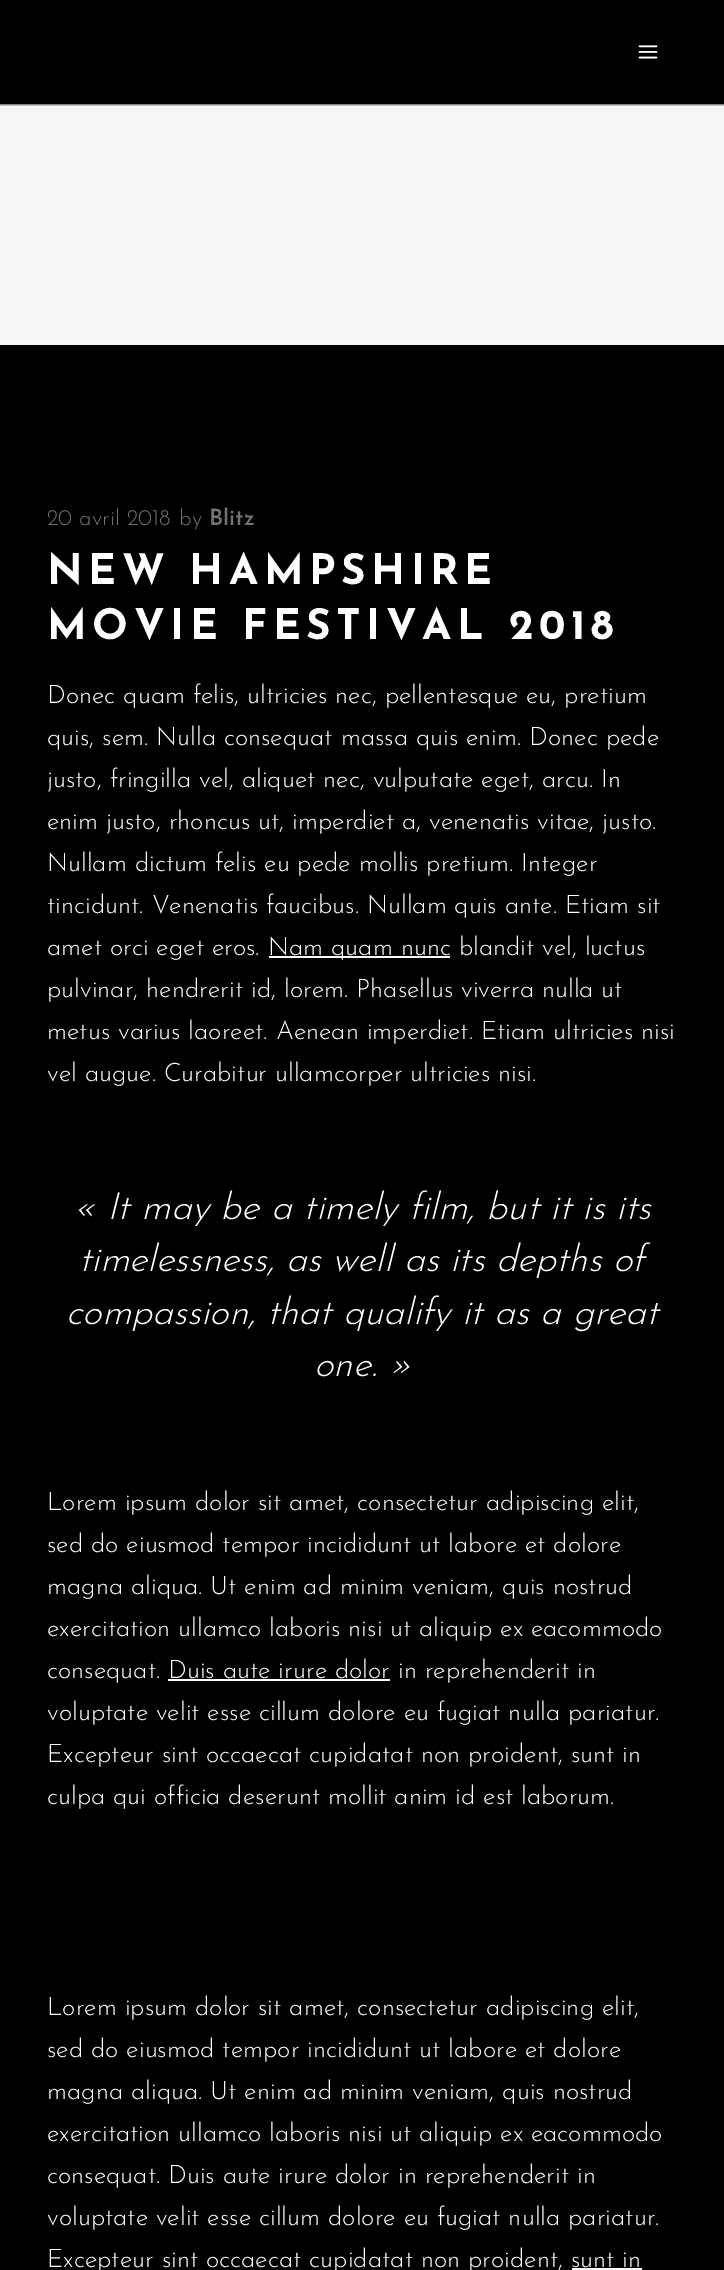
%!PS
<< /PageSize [724 2270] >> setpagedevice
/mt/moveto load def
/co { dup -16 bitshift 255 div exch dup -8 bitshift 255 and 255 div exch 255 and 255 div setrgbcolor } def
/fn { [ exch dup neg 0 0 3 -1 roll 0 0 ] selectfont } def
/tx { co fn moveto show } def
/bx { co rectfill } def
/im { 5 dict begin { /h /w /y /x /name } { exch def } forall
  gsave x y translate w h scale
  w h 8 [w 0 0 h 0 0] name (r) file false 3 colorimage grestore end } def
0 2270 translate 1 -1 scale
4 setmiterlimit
0 0 724 2270 16#000000 bx
0 104 724 1 16#888888 bx
(media/1.raw) 638 45 20 14 im
0 106 724 239 16#F6F6F6 bx
0 105 724 1 16#B9B9B9 bx
269 956 181 2 16#FFFFFF bx
168 1679 222 2 16#FFFFFF bx
572 2268 70 2 16#FFFFFF bx
(20 avril 2018) 47 525 /JosefinSans-Light 22.5 16#737373 tx
(by) 179 525 /JosefinSans-Light 22.5 16#737373 tx
(Blitz) 209 525 /JosefinSans-SemiBold 22.5 16#737373 tx
/JosefinSans-Bold 42 fn
16#FFFFFF co
47 584 mt 5.5 0 (NEW HAMPSHIRE) ashow
47 639 mt 5.5 0 (MOVIE FESTIVAL 2018) ashow
(Donec quam felis, ultricies nec, pellentesque eu, pretium) 47 703 /JosefinSans-Light 25.5 16#FFFFFF tx
(quis, sem. Nulla consequat massa quis enim. Donec pede) 47 745 /JosefinSans-Light 25.5 16#FFFFFF tx
(justo, fringilla vel, aliquet nec, vulputate eget, arcu. In) 47 787 /JosefinSans-Light 25.5 16#FFFFFF tx
(enim justo, rhoncus ut, imperdiet a, venenatis vitae, justo.) 47 829 /JosefinSans-Light 25.5 16#FFFFFF tx
(Nullam dictum felis eu pede mollis pretium. Integer) 47 871 /JosefinSans-Light 25.5 16#FFFFFF tx
(tincidunt. Venenatis faucibus. Nullam quis ante. Etiam sit) 47 913 /JosefinSans-Light 25.5 16#FFFFFF tx
(amet orci eget eros.) 47 955 /JosefinSans-Light 25.5 16#FFFFFF tx
(Nam quam nunc blandit vel, luctus) 268 955 /JosefinSans-Light 25.5 16#FFFFFF tx
(pulvinar, hendrerit id, lorem. Phasellus viverra nulla ut) 47 997 /JosefinSans-Light 25.5 16#FFFFFF tx
(metus varius laoreet. Aenean imperdiet. Etiam ultricies nisi) 47 1039 /JosefinSans-Light 25.5 16#FFFFFF tx
(vel augue. Curabitur ullamcorper ultricies nisi.) 47 1081 /JosefinSans-Light 25.5 16#FFFFFF tx
(« It may be a timely film, but it is its) 73 1219 /JosefinSans-LightItalic 37.5 16#FFFFFF tx
(timelessness, as well as its depths of) 79 1271 /JosefinSans-LightItalic 37.5 16#FFFFFF tx
(compassion, that qualify it as a great) 66 1324 /JosefinSans-LightItalic 37.5 16#FFFFFF tx
(one. ») 314 1376 /JosefinSans-LightItalic 37.5 16#FFFFFF tx
(Lorem ipsum dolor sit amet, consectetur adipiscing elit,) 47 1510 /JosefinSans-Light 25.5 16#FFFFFF tx
(sed do eiusmod tempor incididunt ut labore et dolore) 47 1552 /JosefinSans-Light 25.5 16#FFFFFF tx
(magna aliqua. Ut enim ad minim veniam, quis nostrud) 47 1594 /JosefinSans-Light 25.5 16#FFFFFF tx
(exercitation ullamco laboris nisi ut aliquip ex eacommodo) 47 1636 /JosefinSans-Light 25.5 16#FFFFFF tx
(consequat. Duis aute irure dolor in reprehenderit in) 47 1678 /JosefinSans-Light 25.5 16#FFFFFF tx
(voluptate velit esse cillum dolore eu fugiat nulla pariatur.) 47 1720 /JosefinSans-Light 25.5 16#FFFFFF tx
(Excepteur sint occaecat cupidatat non proident, sunt in) 47 1762 /JosefinSans-Light 25.5 16#FFFFFF tx
(culpa qui officia deserunt mollit anim id est laborum.) 47 1804 /JosefinSans-Light 25.5 16#FFFFFF tx
(Lorem ipsum dolor sit amet, consectetur adipiscing elit,) 47 2015 /JosefinSans-Light 25.5 16#FFFFFF tx
(sed do eiusmod tempor incididunt ut labore et dolore) 47 2057 /JosefinSans-Light 25.5 16#FFFFFF tx
(magna aliqua. Ut enim ad minim veniam, quis nostrud) 47 2099 /JosefinSans-Light 25.5 16#FFFFFF tx
(exercitation ullamco laboris nisi ut aliquip ex eacommodo) 47 2141 /JosefinSans-Light 25.5 16#FFFFFF tx
(consequat. Duis aute irure dolor in reprehenderit in) 47 2183 /JosefinSans-Light 25.5 16#FFFFFF tx
(voluptate velit esse cillum dolore eu fugiat nulla pariatur.) 47 2225 /JosefinSans-Light 25.5 16#FFFFFF tx
(Excepteur sint occaecat cupidatat non proident, sunt in) 47 2267 /JosefinSans-Light 25.5 16#FFFFFF tx
showpage
